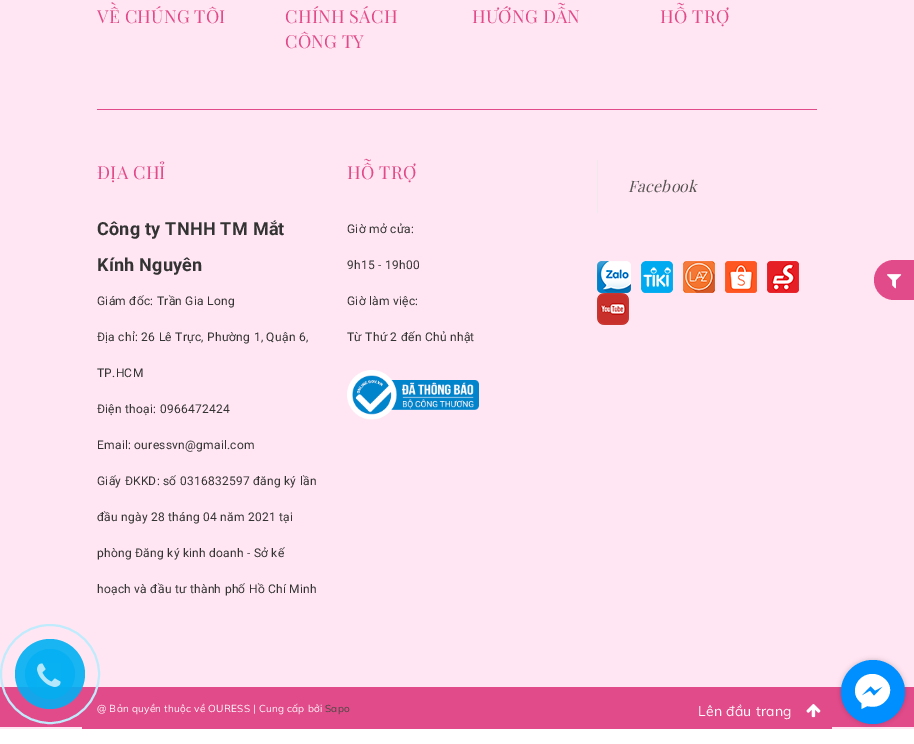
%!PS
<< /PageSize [914 744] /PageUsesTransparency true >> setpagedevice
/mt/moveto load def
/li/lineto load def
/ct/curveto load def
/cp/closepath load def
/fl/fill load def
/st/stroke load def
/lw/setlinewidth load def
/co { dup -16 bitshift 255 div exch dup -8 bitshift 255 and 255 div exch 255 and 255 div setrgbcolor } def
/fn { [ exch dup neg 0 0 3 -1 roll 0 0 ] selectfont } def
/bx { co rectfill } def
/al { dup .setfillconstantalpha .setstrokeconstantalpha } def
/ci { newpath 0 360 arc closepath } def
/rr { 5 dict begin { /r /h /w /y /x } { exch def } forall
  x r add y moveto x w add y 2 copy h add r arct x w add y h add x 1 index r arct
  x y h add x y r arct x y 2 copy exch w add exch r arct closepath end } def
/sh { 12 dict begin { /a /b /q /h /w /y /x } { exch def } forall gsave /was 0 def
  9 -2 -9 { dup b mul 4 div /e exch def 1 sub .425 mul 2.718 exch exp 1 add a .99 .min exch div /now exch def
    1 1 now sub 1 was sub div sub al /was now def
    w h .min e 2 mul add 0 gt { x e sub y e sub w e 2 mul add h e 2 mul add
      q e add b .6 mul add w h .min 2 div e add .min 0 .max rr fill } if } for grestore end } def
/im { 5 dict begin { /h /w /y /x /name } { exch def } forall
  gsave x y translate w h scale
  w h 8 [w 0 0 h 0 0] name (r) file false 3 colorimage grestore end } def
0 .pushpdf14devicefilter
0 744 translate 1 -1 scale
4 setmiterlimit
0 0 914 744 16#FFFFFF bx
0 0 914 687 16#FFE6F2 bx
97 109 720 1 16#E24B8A bx
(media/2.raw) 347 370 132 50 im
597 160 1 53 16#EBEBEB bx
(media/3.raw) 597 261 34 32 im
(media/4.raw) 641 261 32 32 im
(media/5.raw) 683 261 32 32 im
(media/6.raw) 725 261 32 32 im
(media/7.raw) 767 261 32 32 im
(media/8.raw) 597 293 32 32 im
0 727 914 2 16#FFE6F2 bx
0 687 82 40 16#E24B8A bx
82 687 750 42 16#E24B8A bx
(media/9.raw) 806 704 15 14 im
832 687 82 40 16#E24B8A bx
894 260 mt 914 260 li 914 300 li 894 300 li 883 300 874 291 874 280 ct 874 269 883 260 894 260 ct cp fl
(media/10.raw) 887 274 15 15 im
16#000000 co
841 660 64 64 32 2.5 .2 sh
16#008FFF co
873 692 32 ci fl
16#FFFFFF co
872.5 674 mt 856.5 674 848.5 693.5 861.5 703 ct 861.5 709 li 867.5 706 li 884.5 711 899 689.5 883.5 678 ct 880.5 675.5 876.5 674 872.5 674 ct cp 874 696 mt 870 691 li 861 696 li 870.5 686 li 875 690.5 li 883.5 686 li cp fl
/PlayfairDisplay-Regular 18 fn
16#E24B8A co
97 23 mt .25 0 (VỀ CHÚNG TÔI) ashow
285 23 mt .25 0 (CHÍNH SÁCH) ashow
285 48 mt .25 0 (CÔNG TY) ashow
472 23 mt .25 0 (HƯỚNG DẪN) ashow
660 23 mt .25 0 (HỖ TRỢ) ashow
97 179 mt .25 0 (ĐỊA CHỈ) ashow
/Roboto-Bold 18 fn
16#333333 co
97 235 mt .25 0 (Công ty TNHH TM Mắt) ashow
97 271 mt .25 0 (Kính Nguyên) ashow
/Roboto-Regular 12 fn
97 305 mt .25 0 (Giám đốc: Trần Gia Long) ashow
97 341 mt .25 0 (Địa chỉ: 26 Lê Trực, Phường 1, Quận 6,) ashow
97 377 mt .25 0 (TP.HCM) ashow
97 413 mt .25 0 (Điện thoại: 0966472424) ashow
97 449 mt .25 0 (Email: ouressvn@gmail.com) ashow
97 485 mt .25 0 (Giấy ĐKKD: số 0316832597 đăng ký lần) ashow
97 521 mt .25 0 (đầu ngày 28 tháng 04 năm 2021 tại) ashow
97 557 mt .25 0 (phòng Đăng ký kinh doanh - Sở kế) ashow
97 593 mt .25 0 (hoạch và đầu tư thành phố Hồ Chí Minh) ashow
/PlayfairDisplay-Regular 18 fn
16#E24B8A co
347 179 mt .25 0 (HỖ TRỢ) ashow
/Roboto-Regular 12 fn
16#333333 co
347 233 mt .25 0 (Giờ mở cửa:) ashow
347 269 mt .25 0 (9h15 - 19h00) ashow
347 305 mt .25 0 (Giờ làm việc:) ashow
347 341 mt .25 0 (Từ Thứ 2 đến Chủ nhật) ashow
/PlayfairDisplay-Italic 15.75 fn
16#575454 co
628 192 mt .25 0 (Facebook) ashow
/Muli-Regular 10 fn
16#FFFFFF co
97 712 mt .25 0 (@ Bản quyền thuộc về OURESS | Cung cấp bởi) ashow
16#BFEBFC co
2 lw
50 674 49 ci st
0.9 al
16#00AFF2 co
50 674 35 ci fl
0.7 al
50 674 25 ci fl
1 al
(media/1.raw) 37 663 24 24 im
16#3F493E co
325 712 mt .25 0 (Sapo) ashow
/Muli-Regular 14 fn
16#FFFFFF co
698 716 mt .25 0 (Lên đầu trang) ashow
.poppdf14devicefilter showpage
